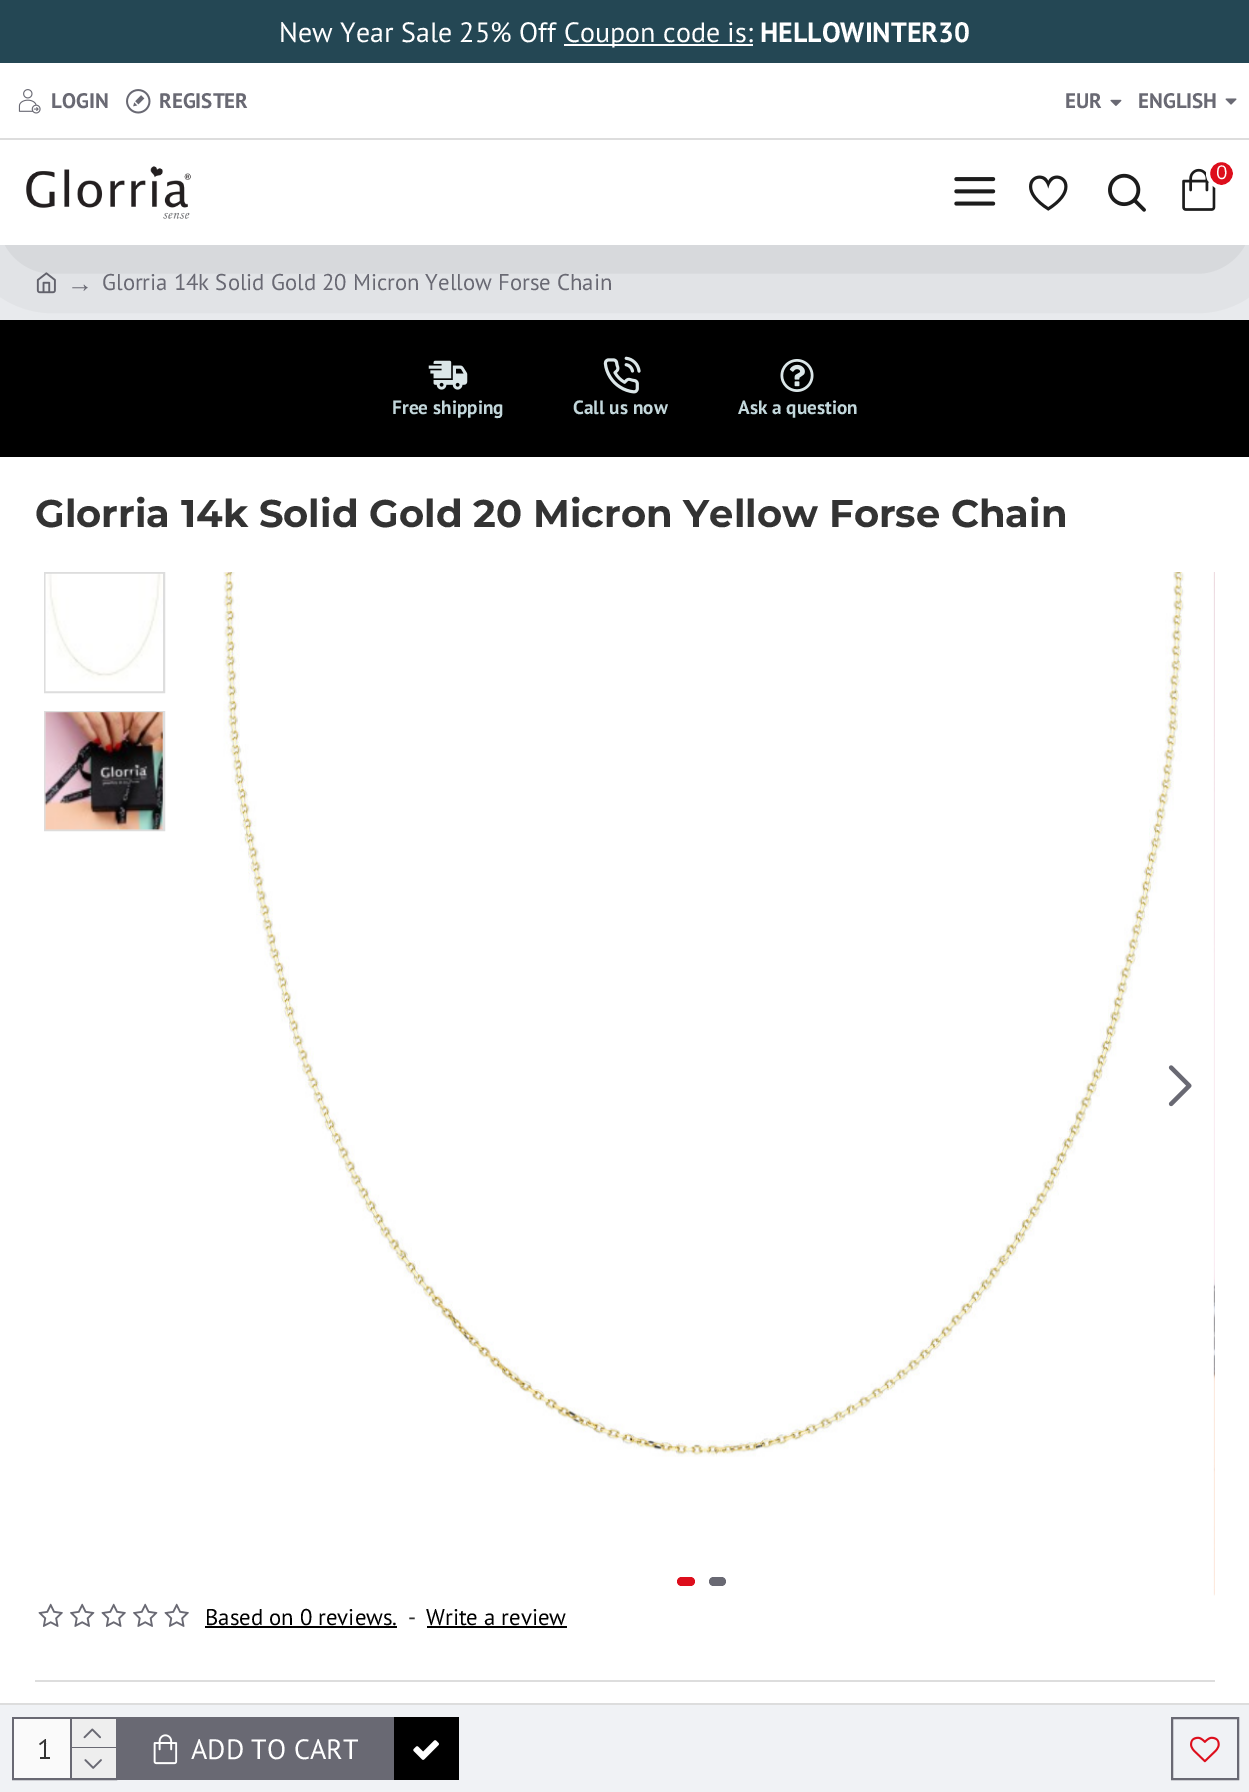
%!PS
<< /PageSize [1249 1792] /PageUsesTransparency true >> setpagedevice
/fl/fill load def
/st/stroke load def
/gs/gsave load def
/gr/grestore load def
/lw/setlinewidth load def
/co { dup -16 bitshift 255 div exch dup -8 bitshift 255 and 255 div exch 255 and 255 div setrgbcolor } def
/fn { [ exch dup neg 0 0 3 -1 roll 0 0 ] selectfont } def
/tx { co fn moveto show } def
/bx { co rectfill } def
/al { dup .setfillconstantalpha .setstrokeconstantalpha } def
/ci { newpath 0 360 arc closepath } def
/rr { 5 dict begin { /r /h /w /y /x } { exch def } forall
  x r add y moveto x w add y 2 copy h add r arct x w add y h add x 1 index r arct
  x y h add x y r arct x y 2 copy exch w add exch r arct closepath end } def
/sh { 12 dict begin { /a /b /q /h /w /y /x } { exch def } forall gsave /was 0 def
  9 -2 -9 { dup b mul 4 div /e exch def 1 sub .425 mul 2.718 exch exp 1 add a .99 .min exch div /now exch def
    1 1 now sub 1 was sub div sub al /was now def
    w h .min e 2 mul add 0 gt { x e sub y e sub w e 2 mul add h e 2 mul add
      q e add b .6 mul add w h .min 2 div e add .min 0 .max rr fill } if } for grestore end } def
/im { 5 dict begin { /h /w /y /x /name } { exch def } forall
  gsave x y translate w h scale
  w h 8 [w 0 0 h 0 0] name (r) file false 3 colorimage grestore end } def
0 .pushpdf14devicefilter
0 1792 translate 1 -1 scale
4 setmiterlimit
0 0 1249 1792 16#FFFFFF bx
0 0 1249 63 16#244754 bx
564 44 189 2 16#FFFFFF bx
0 245 1249 75 16#F0F2F5 bx
(media/10.raw) 36 272 20 22 im
0 320 1249 137 16#000000 bx
(media/11.raw) 428 360 40 30 im
(media/12.raw) 603 356 38 38 im
(media/13.raw) 780 359 34 33 im
gs
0 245 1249 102 rectclip
18 184 1214 70 0 79 .2 sh
gr
0 63 1249 75 16#FFFFFF bx
0 138 1249 2 16#DDDDDD bx
(media/1.raw) 18 89 23 25 im
(media/2.raw) 126 89 25 25 im
(media/3.raw) 1110 99 12 7 im
(media/4.raw) 1225 98 12 7 im
(media/5.raw) 26 166 165 53 im
(media/6.raw) 954 177 42 29 im
(media/7.raw) 1029 175 39 36 im
(media/8.raw) 1108 173 38 39 im
(media/9.raw) 1182 168 34 43 im
16#DD0E1C co
1221.5 173.5 13.5 ci gs fl gr
16#FFFFFF co
4 lw
st
16#DDDDDD co
2 lw
45 573 119 119 rectstroke
(media/14.raw) 45 573 118 119 im
45 712 119 118 rectstroke
(media/15.raw) 44 712 119 119 im
(media/16.raw) 223 572 962 885 im
(media/17.raw) 1213 572 2 1024 im
(media/18.raw) 1168 1065 24 42 im
16#DD0E1C co
677 1577 18 9 4.5 rr fl
16#696973 co
709 1577 17 9 4.5 rr fl
35 1680 1180 2 16#DDDDDD bx
(media/19.raw) 38 1603 25 24 im
(media/20.raw) 70 1603 25 24 im
(media/19.raw) 101 1603 25 24 im
(media/20.raw) 133 1603 25 24 im
(media/19.raw) 164 1603 25 24 im
205 1626 192 2 16#000000 bx
427 1626 140 2 16#000000 bx
0 1705 1249 87 16#F0F2F5 bx
0 1703 1249 2 16#DDDDDD bx
16#696973 co
13 1718 103 61 rectstroke
14 1719 56 59 16#FAFAFA bx
70 1719 2 59 16#696973 bx
72 1719 44 28 16#EEEEEE bx
72 1747 44 1 16#696973 bx
(media/21.raw) 83 1728 18 11 im
72 1748 44 30 16#EEEEEE bx
(media/22.raw) 84 1759 18 10 im
117 1717 277 63 16#696973 bx
(media/23.raw) 153 1734 25 31 im
394 1717 65 63 16#000000 bx
(media/24.raw) 413 1740 26 20 im
16#696973 co
1172 1718 66 61 rectstroke
(media/25.raw) 1190 1736 30 27 im
(New Year Sale 25% Off) 279 42 /PTSans-Regular 28 16#FFFFFF tx
(Coupon code is:) 564 42 /PTSans-Regular 28 16#FFFFFF tx
(HELLOWINTER30) 760 42 /PTSans-Bold 28 16#FFFFFF tx
(LOGIN) 51 108 /PTSans-Bold 21 16#696973 tx
(REGISTER) 159 108 /PTSans-Bold 21 16#696973 tx
(EUR) 1065 108 /PTSans-Bold 21 16#696973 tx
(ENGLISH) 1138 108 /PTSans-Bold 21 16#696973 tx
(0) 1216 179 /NunitoSans-Regular 19.25 16#FFFFFF tx
(→) 67 292 /LiberationSerif-Regular 26 16#696973 tx
(Glorria 14k Solid Gold 20 Micron Yellow Forse Chain) 102 290 /PTSans-Regular 22.75 16#696973 tx
(Free shipping) 392 414 /PTSans-Bold 19.25 16#C3D7DB tx
(Call us now) 573 414 /PTSans-Bold 19.25 16#C3D7DB tx
(Ask a question) 738 414 /PTSans-Bold 19.25 16#C3D7DB tx
(Glorria 14k Solid Gold 20 Micron Yellow Forse Chain) 35 527 /Montserrat-Bold 38.5 16#333333 tx
(Based on 0 reviews.) 205 1625 /PTSans-Regular 22.75 16#000000 tx
(-) 408 1625 /PTSans-Regular 22.75 16#333333 tx
(Write a review) 426 1625 /PTSans-Regular 22.75 16#000000 tx
(1) 37 1759 /PTSans-Regular 28 16#333333 tx
(ADD TO CART) 191 1759 /PTSans-Regular 28 16#FFFFFF tx
.poppdf14devicefilter showpage
